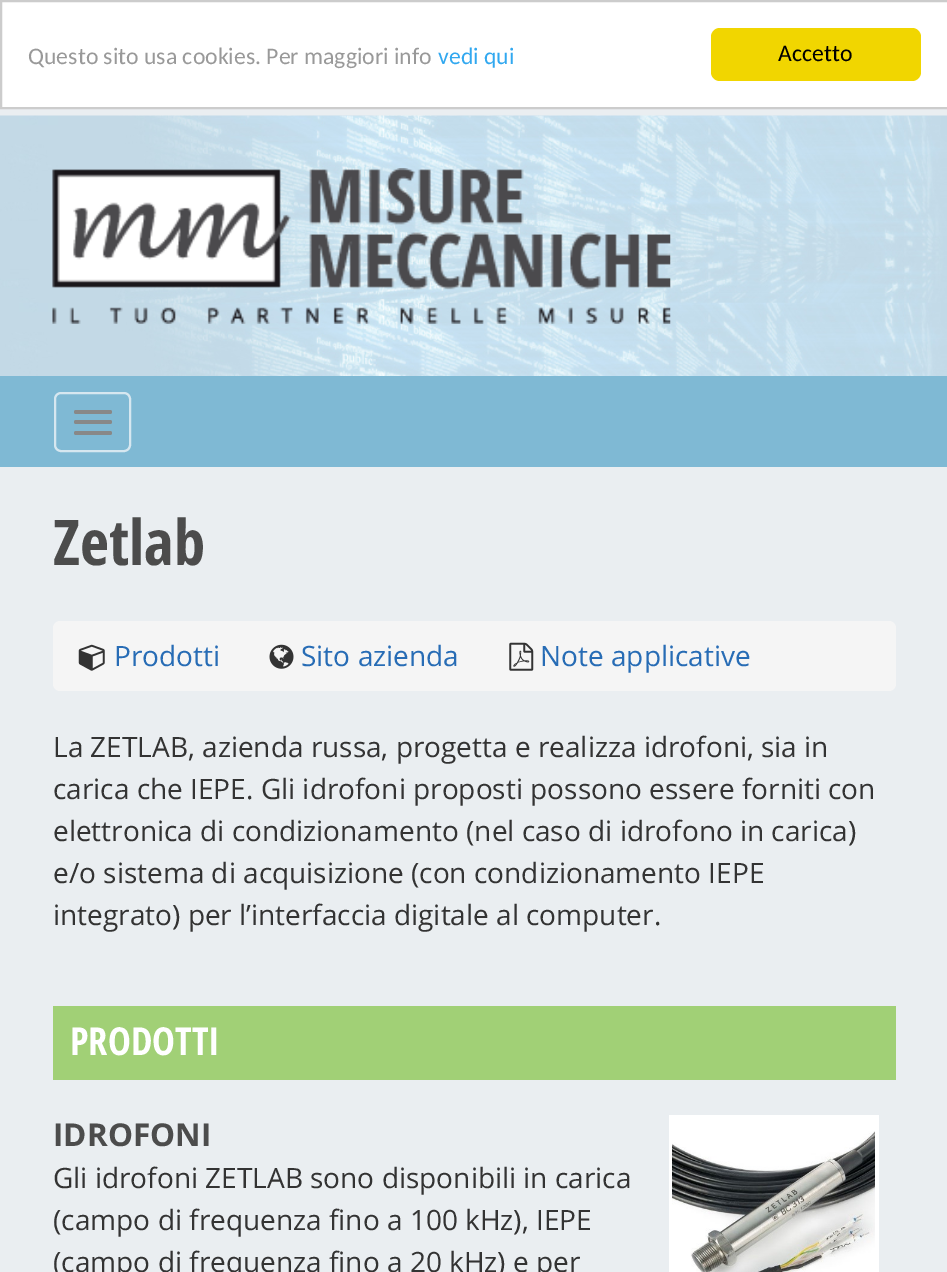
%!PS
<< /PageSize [947 1272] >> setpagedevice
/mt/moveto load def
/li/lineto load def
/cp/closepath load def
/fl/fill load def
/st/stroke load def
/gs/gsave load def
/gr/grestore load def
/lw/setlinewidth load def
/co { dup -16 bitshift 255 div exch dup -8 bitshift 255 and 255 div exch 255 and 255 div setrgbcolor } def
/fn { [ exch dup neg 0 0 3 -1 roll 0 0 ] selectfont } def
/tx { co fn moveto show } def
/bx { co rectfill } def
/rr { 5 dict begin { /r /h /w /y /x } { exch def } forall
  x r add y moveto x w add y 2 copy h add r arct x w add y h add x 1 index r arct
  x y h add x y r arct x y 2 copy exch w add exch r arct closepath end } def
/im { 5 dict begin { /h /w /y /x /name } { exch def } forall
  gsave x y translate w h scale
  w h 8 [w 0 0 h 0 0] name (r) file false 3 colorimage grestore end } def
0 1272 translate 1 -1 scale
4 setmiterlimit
0 0 947 1272 16#EAEEF1 bx
16#FFFFFF co
1 1 mt 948 1 li 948 108 li 1 108 li cp gs fl gr
16#CCCCCC co
2 lw
st
16#F1D600 co
711 28 210 53 9 rr fl
(media/1.raw) 0 115 947 261 im
(media/2.raw) 52 168 619 156 im
0 376 947 91 16#7FB9D4 bx
16#D6E7F0 co
55 393 75 58 6 rr st
16#888888 co
74 410 38 4 2 rr fl
74 420 38 4 2 rr fl
74 431 38 4 2 rr fl
16#F5F5F5 co
53 621 843 70 7 rr fl
(media/3.raw) 78 644 27 27 im
(media/4.raw) 269 644 25 25 im
(media/5.raw) 509 642 25 29 im
53 1006 843 74 16#A1D076 bx
669 1115 210 157 16#FFFFFF bx
(media/6.raw) 672 1131 203 141 im
(Questo sito usa cookies. Per maggiori info) 28 64 /Carlito-Regular 23.75 16#999999 tx
(vedi qui) 438 64 /Carlito-Regular 23.75 16#31A8F0 tx
(Accetto) 778 61 /Carlito-Regular 23.75 16#000000 tx
(Zetlab) 53 565 /OpenSansCondensed-Bold 63 16#4C4C4C tx
(Prodotti) 114 666 /OpenSans-Regular 28 16#276CB5 tx
(Sito azienda) 301 666 /OpenSans-Regular 28 16#276CB5 tx
(Note applicative) 540 666 /OpenSans-Regular 28 16#276CB5 tx
(La ZETLAB, azienda russa, progetta e realizza idrofoni, sia in) 53 757 /OpenSans-Regular 28 16#333333 tx
(carica che IEPE. Gli idrofoni proposti possono essere forniti con) 53 799 /OpenSans-Regular 28 16#333333 tx
(elettronica di condizionamento \(nel caso di idrofono in carica\)) 53 841 /OpenSans-Regular 28 16#333333 tx
(e/o sistema di acquisizione \(con condizionamento IEPE) 53 883 /OpenSans-Regular 28 16#333333 tx
(integrato\) per l’interfaccia digitale al computer.) 53 925 /OpenSans-Regular 28 16#333333 tx
(PRODOTTI) 70 1055 /OpenSansCondensed-Bold 38.5 16#FFFFFF tx
(IDROFONI) 53 1146 /OpenSans-Bold 31.5 16#4C4C4C tx
(Gli idrofoni ZETLAB sono disponibili in carica) 53 1188 /OpenSans-Regular 28 16#333333 tx
(\(campo di frequenza fino a 100 kHz\), IEPE) 53 1230 /OpenSans-Regular 28 16#333333 tx
(\(campo di frequenza fino a 20 kHz\) e per) 53 1272 /OpenSans-Regular 28 16#333333 tx
showpage
